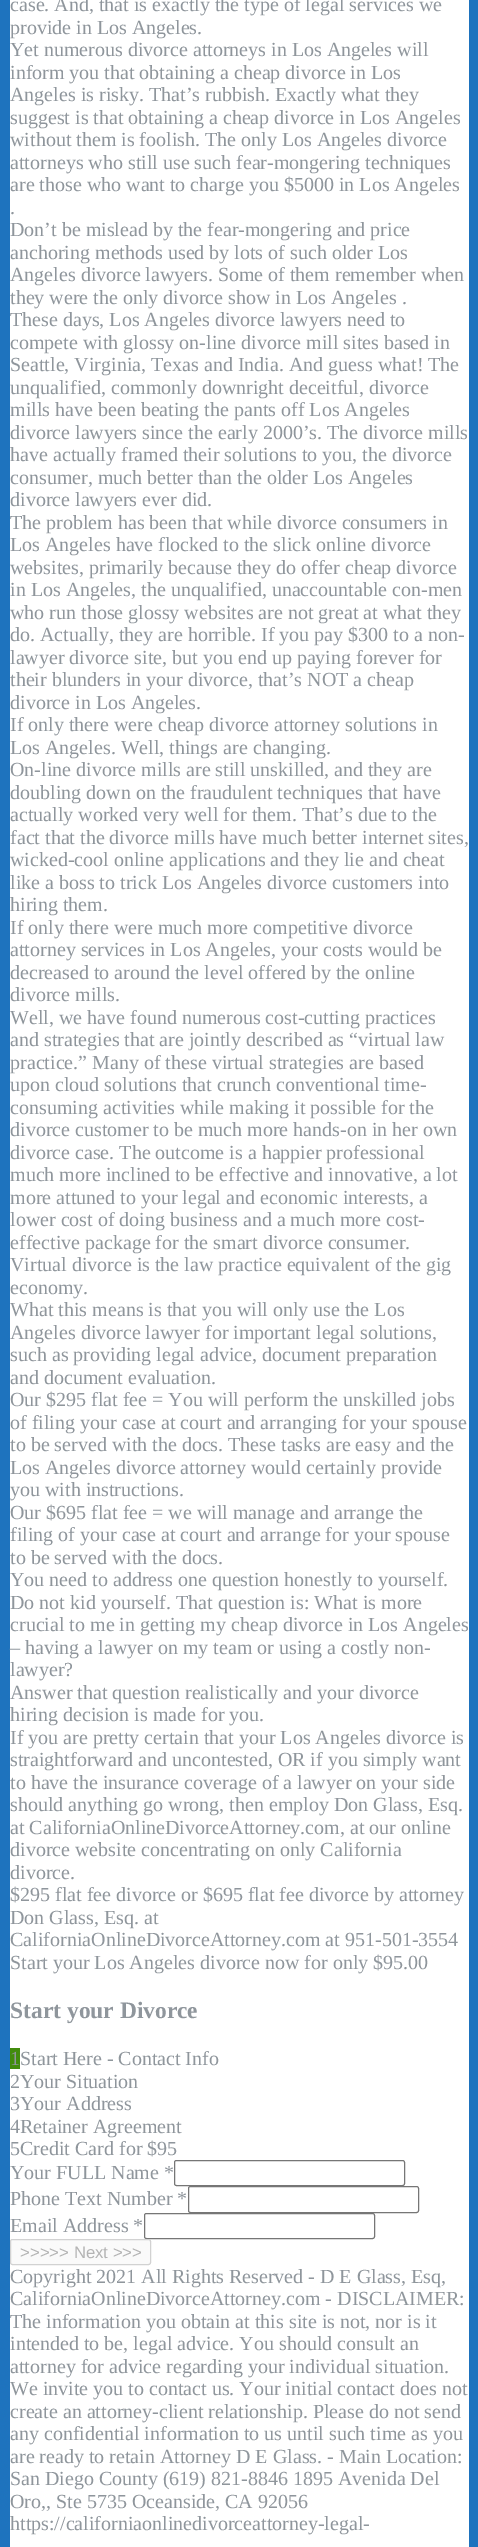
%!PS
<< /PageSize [478 2547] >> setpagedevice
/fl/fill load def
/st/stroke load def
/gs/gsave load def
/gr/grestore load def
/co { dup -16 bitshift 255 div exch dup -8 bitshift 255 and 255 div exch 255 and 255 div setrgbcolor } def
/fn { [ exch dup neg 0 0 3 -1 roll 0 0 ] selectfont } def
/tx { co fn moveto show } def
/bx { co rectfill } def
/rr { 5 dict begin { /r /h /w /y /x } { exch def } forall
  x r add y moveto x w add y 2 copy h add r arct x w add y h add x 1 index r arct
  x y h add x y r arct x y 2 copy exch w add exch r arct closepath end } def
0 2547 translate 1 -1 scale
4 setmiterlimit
0 0 478 2547 16#1E73BE bx
10 0 459 2547 16#FFFFFF bx
10 2048 10 21 16#428C0D bx
16#767676 co
174.5 2160.5 230 25 2 rr st
188.5 2186.5 230 26 2 rr st
144.5 2213.5 230 25 2 rr st
16#FAFAFA co
10.5 2239.5 140 25 2 rr gs fl gr
16#D2D2D2 co
st
(case. And, that is exactly the type of legal services we) 10 11 /LiberationSerif-Regular 20 16#8F969C tx
(provide in Los Angeles.) 10 34 /LiberationSerif-Regular 20 16#8F969C tx
(Yet numerous divorce attorneys in Los Angeles will) 10 56 /LiberationSerif-Regular 20 16#8F969C tx
(inform you that obtaining a cheap divorce in Los) 10 79 /LiberationSerif-Regular 20 16#8F969C tx
(Angeles is risky. That’s rubbish. Exactly what they) 10 101 /LiberationSerif-Regular 20 16#8F969C tx
(suggest is that obtaining a cheap divorce in Los Angeles) 10 124 /LiberationSerif-Regular 20 16#8F969C tx
(without them is foolish. The only Los Angeles divorce) 10 146 /LiberationSerif-Regular 20 16#8F969C tx
(attorneys who still use such fear-mongering techniques) 10 169 /LiberationSerif-Regular 20 16#8F969C tx
(are those who want to charge you $5000 in Los Angeles) 10 191 /LiberationSerif-Regular 20 16#8F969C tx
(.) 10 214 /LiberationSerif-Regular 20 16#8F969C tx
(Don’t be mislead by the fear-mongering and price) 10 236 /LiberationSerif-Regular 20 16#8F969C tx
(anchoring methods used by lots of such older Los) 10 259 /LiberationSerif-Regular 20 16#8F969C tx
(Angeles divorce lawyers. Some of them remember when) 10 281 /LiberationSerif-Regular 20 16#8F969C tx
(they were the only divorce show in Los Angeles .) 10 304 /LiberationSerif-Regular 20 16#8F969C tx
(These days, Los Angeles divorce lawyers need to) 10 326 /LiberationSerif-Regular 20 16#8F969C tx
(compete with glossy on-line divorce mill sites based in) 10 349 /LiberationSerif-Regular 20 16#8F969C tx
(Seattle, Virginia, Texas and India. And guess what! The) 10 371 /LiberationSerif-Regular 20 16#8F969C tx
(unqualified, commonly downright deceitful, divorce) 10 394 /LiberationSerif-Regular 20 16#8F969C tx
(mills have been beating the pants off Los Angeles) 10 416 /LiberationSerif-Regular 20 16#8F969C tx
(divorce lawyers since the early 2000’s. The divorce mills) 10 439 /LiberationSerif-Regular 20 16#8F969C tx
(have actually framed their solutions to you, the divorce) 10 461 /LiberationSerif-Regular 20 16#8F969C tx
(consumer, much better than the older Los Angeles) 10 484 /LiberationSerif-Regular 20 16#8F969C tx
(divorce lawyers ever did.) 10 506 /LiberationSerif-Regular 20 16#8F969C tx
(The problem has been that while divorce consumers in) 10 529 /LiberationSerif-Regular 20 16#8F969C tx
(Los Angeles have flocked to the slick online divorce) 10 551 /LiberationSerif-Regular 20 16#8F969C tx
(websites, primarily because they do offer cheap divorce) 10 574 /LiberationSerif-Regular 20 16#8F969C tx
(in Los Angeles, the unqualified, unaccountable con-men) 10 596 /LiberationSerif-Regular 20 16#8F969C tx
(who run those glossy websites are not great at what they) 10 619 /LiberationSerif-Regular 20 16#8F969C tx
(do. Actually, they are horrible. If you pay $300 to a non-) 10 641 /LiberationSerif-Regular 20 16#8F969C tx
(lawyer divorce site, but you end up paying forever for) 10 664 /LiberationSerif-Regular 20 16#8F969C tx
(their blunders in your divorce, that’s NOT a cheap) 10 686 /LiberationSerif-Regular 20 16#8F969C tx
(divorce in Los Angeles.) 10 709 /LiberationSerif-Regular 20 16#8F969C tx
(If only there were cheap divorce attorney solutions in) 10 731 /LiberationSerif-Regular 20 16#8F969C tx
(Los Angeles. Well, things are changing.) 10 754 /LiberationSerif-Regular 20 16#8F969C tx
(On-line divorce mills are still unskilled, and they are) 10 776 /LiberationSerif-Regular 20 16#8F969C tx
(doubling down on the fraudulent techniques that have) 10 799 /LiberationSerif-Regular 20 16#8F969C tx
(actually worked very well for them. That’s due to the) 10 821 /LiberationSerif-Regular 20 16#8F969C tx
(fact that the divorce mills have much better internet sites,) 10 844 /LiberationSerif-Regular 20 16#8F969C tx
(wicked-cool online applications and they lie and cheat) 10 866 /LiberationSerif-Regular 20 16#8F969C tx
(like a boss to trick Los Angeles divorce customers into) 10 889 /LiberationSerif-Regular 20 16#8F969C tx
(hiring them.) 10 911 /LiberationSerif-Regular 20 16#8F969C tx
(If only there were much more competitive divorce) 10 934 /LiberationSerif-Regular 20 16#8F969C tx
(attorney services in Los Angeles, your costs would be) 10 956 /LiberationSerif-Regular 20 16#8F969C tx
(decreased to around the level offered by the online) 10 979 /LiberationSerif-Regular 20 16#8F969C tx
(divorce mills.) 10 1001 /LiberationSerif-Regular 20 16#8F969C tx
(Well, we have found numerous cost-cutting practices) 10 1024 /LiberationSerif-Regular 20 16#8F969C tx
(and strategies that are jointly described as “virtual law) 10 1046 /LiberationSerif-Regular 20 16#8F969C tx
(practice.” Many of these virtual strategies are based) 10 1069 /LiberationSerif-Regular 20 16#8F969C tx
(upon cloud solutions that crunch conventional time-) 10 1091 /LiberationSerif-Regular 20 16#8F969C tx
(consuming activities while making it possible for the) 10 1114 /LiberationSerif-Regular 20 16#8F969C tx
(divorce customer to be much more hands-on in her own) 10 1136 /LiberationSerif-Regular 20 16#8F969C tx
(divorce case. The outcome is a happier professional) 10 1159 /LiberationSerif-Regular 20 16#8F969C tx
(much more inclined to be effective and innovative, a lot) 10 1181 /LiberationSerif-Regular 20 16#8F969C tx
(more attuned to your legal and economic interests, a) 10 1204 /LiberationSerif-Regular 20 16#8F969C tx
(lower cost of doing business and a much more cost-) 10 1226 /LiberationSerif-Regular 20 16#8F969C tx
(effective package for the smart divorce consumer.) 10 1249 /LiberationSerif-Regular 20 16#8F969C tx
(Virtual divorce is the law practice equivalent of the gig) 10 1271 /LiberationSerif-Regular 20 16#8F969C tx
(economy.) 10 1294 /LiberationSerif-Regular 20 16#8F969C tx
(What this means is that you will only use the Los) 10 1316 /LiberationSerif-Regular 20 16#8F969C tx
(Angeles divorce lawyer for important legal solutions,) 10 1339 /LiberationSerif-Regular 20 16#8F969C tx
(such as providing legal advice, document preparation) 10 1361 /LiberationSerif-Regular 20 16#8F969C tx
(and document evaluation.) 10 1384 /LiberationSerif-Regular 20 16#8F969C tx
(Our $295 flat fee = You will perform the unskilled jobs) 10 1406 /LiberationSerif-Regular 20 16#8F969C tx
(of filing your case at court and arranging for your spouse) 10 1429 /LiberationSerif-Regular 20 16#8F969C tx
(to be served with the docs. These tasks are easy and the) 10 1451 /LiberationSerif-Regular 20 16#8F969C tx
(Los Angeles divorce attorney would certainly provide) 10 1474 /LiberationSerif-Regular 20 16#8F969C tx
(you with instructions.) 10 1496 /LiberationSerif-Regular 20 16#8F969C tx
(Our $695 flat fee = we will manage and arrange the) 10 1519 /LiberationSerif-Regular 20 16#8F969C tx
(filing of your case at court and arrange for your spouse) 10 1541 /LiberationSerif-Regular 20 16#8F969C tx
(to be served with the docs.) 10 1564 /LiberationSerif-Regular 20 16#8F969C tx
(You need to address one question honestly to yourself.) 10 1586 /LiberationSerif-Regular 20 16#8F969C tx
(Do not kid yourself. That question is: What is more) 10 1609 /LiberationSerif-Regular 20 16#8F969C tx
(crucial to me in getting my cheap divorce in Los Angeles) 10 1631 /LiberationSerif-Regular 20 16#8F969C tx
(– having a lawyer on my team or using a costly non-) 10 1654 /LiberationSerif-Regular 20 16#8F969C tx
(lawyer?) 10 1676 /LiberationSerif-Regular 20 16#8F969C tx
(Answer that question realistically and your divorce) 10 1699 /LiberationSerif-Regular 20 16#8F969C tx
(hiring decision is made for you.) 10 1721 /LiberationSerif-Regular 20 16#8F969C tx
(If you are pretty certain that your Los Angeles divorce is) 10 1744 /LiberationSerif-Regular 20 16#8F969C tx
(straightforward and uncontested, OR if you simply want) 10 1766 /LiberationSerif-Regular 20 16#8F969C tx
(to have the insurance coverage of a lawyer on your side) 10 1789 /LiberationSerif-Regular 20 16#8F969C tx
(should anything go wrong, then employ Don Glass, Esq.) 10 1811 /LiberationSerif-Regular 20 16#8F969C tx
(at CaliforniaOnlineDivorceAttorney.com, at our online) 10 1834 /LiberationSerif-Regular 20 16#8F969C tx
(divorce website concentrating on only California) 10 1856 /LiberationSerif-Regular 20 16#8F969C tx
(divorce.) 10 1879 /LiberationSerif-Regular 20 16#8F969C tx
($295 flat fee divorce or $695 flat fee divorce by attorney) 10 1901 /LiberationSerif-Regular 20 16#8F969C tx
(Don Glass, Esq. at) 10 1924 /LiberationSerif-Regular 20 16#8F969C tx
(CaliforniaOnlineDivorceAttorney.com at 951-501-3554) 10 1946 /LiberationSerif-Regular 20 16#8F969C tx
(Start your Los Angeles divorce now for only $95.00) 10 1969 /LiberationSerif-Regular 20 16#8F969C tx
(Start your Divorce) 10 2018 /LiberationSerif-Bold 23.5 16#8F969C tx
(1Start Here - Contact Info) 10 2065 /LiberationSerif-Regular 20 16#8F969C tx
(2Your Situation) 10 2088 /LiberationSerif-Regular 20 16#8F969C tx
(3Your Address) 10 2110 /LiberationSerif-Regular 20 16#8F969C tx
(4Retainer Agreement) 10 2133 /LiberationSerif-Regular 20 16#8F969C tx
(5Credit Card for $95) 10 2155 /LiberationSerif-Regular 20 16#8F969C tx
(Your FULL Name *) 10 2179 /LiberationSerif-Regular 20 16#8F969C tx
(Phone Text Number *) 10 2205 /LiberationSerif-Regular 20 16#8F969C tx
(Email Address *) 10 2232 /LiberationSerif-Regular 20 16#8F969C tx
(>>>>> Next >>>) 20 2258 /LiberationSans-Regular 16.75 16#B4B4B4 tx
(Copyright 2021 All Rights Reserved - D E Glass, Esq,) 10 2283 /LiberationSerif-Regular 20 16#8F969C tx
(CaliforniaOnlineDivorceAttorney.com - DISCLAIMER:) 10 2305 /LiberationSerif-Regular 20 16#8F969C tx
(The information you obtain at this site is not, nor is it) 10 2328 /LiberationSerif-Regular 20 16#8F969C tx
(intended to be, legal advice. You should consult an) 10 2350 /LiberationSerif-Regular 20 16#8F969C tx
(attorney for advice regarding your individual situation.) 10 2373 /LiberationSerif-Regular 20 16#8F969C tx
(We invite you to contact us. Your initial contact does not) 10 2395 /LiberationSerif-Regular 20 16#8F969C tx
(create an attorney-client relationship. Please do not send) 10 2418 /LiberationSerif-Regular 20 16#8F969C tx
(any confidential information to us until such time as you) 10 2440 /LiberationSerif-Regular 20 16#8F969C tx
(are ready to retain Attorney D E Glass. - Main Location:) 10 2463 /LiberationSerif-Regular 20 16#8F969C tx
(San Diego County \(619\) 821-8846 1895 Avenida Del) 10 2485 /LiberationSerif-Regular 20 16#8F969C tx
(Oro,, Ste 5735 Oceanside, CA 92056) 10 2508 /LiberationSerif-Regular 20 16#8F969C tx
(https://californiaonlinedivorceattorney-legal-) 10 2530 /LiberationSerif-Regular 20 16#8F969C tx
showpage
